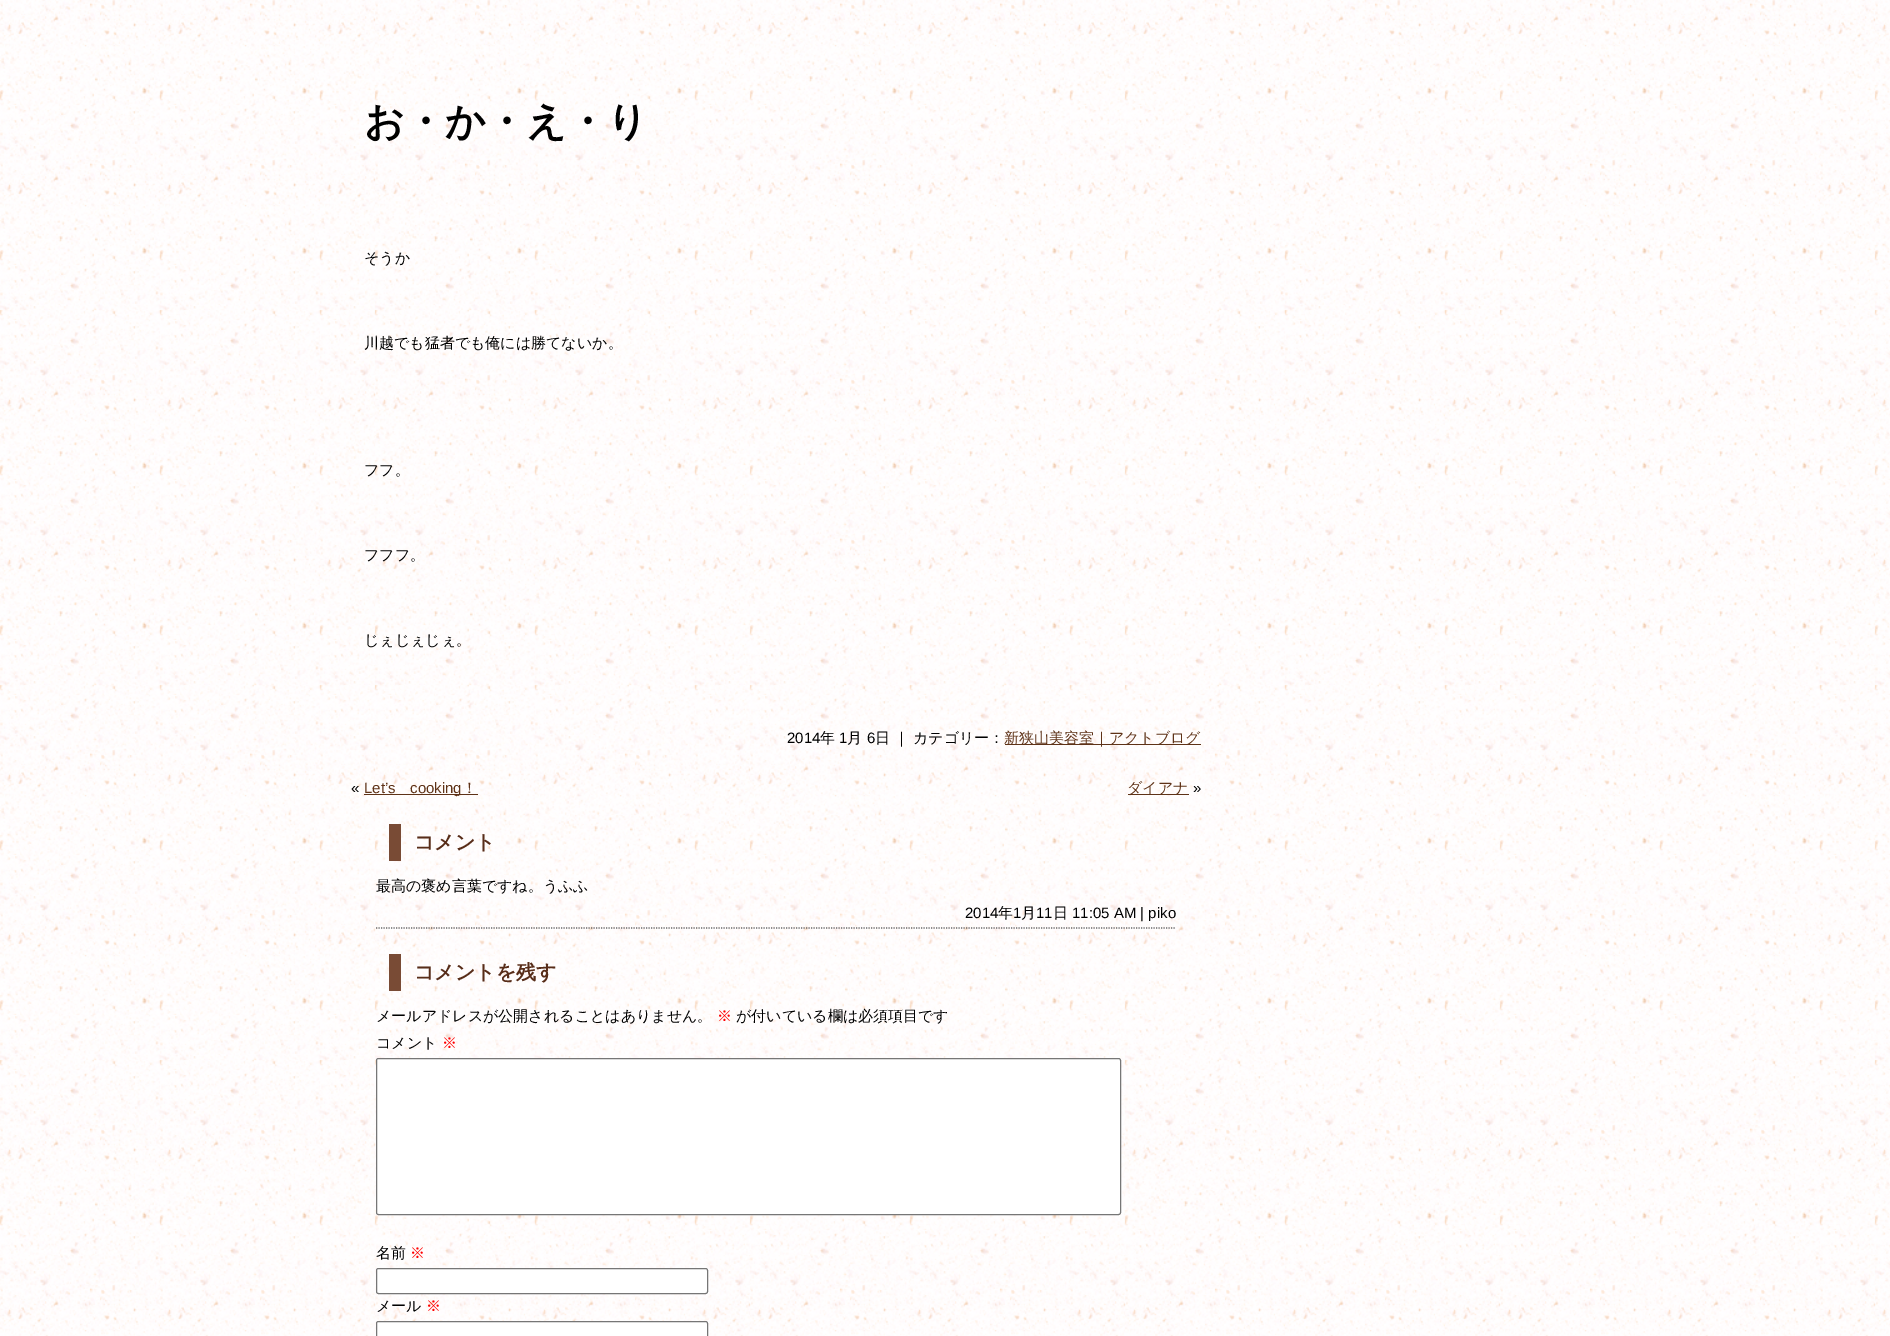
%!PS
<< /PageSize [1890 1336] >> setpagedevice
/mt/moveto load def
/li/lineto load def
/fl/fill load def
/st/stroke load def
/gs/gsave load def
/gr/grestore load def
/lw/setlinewidth load def
/co { dup -16 bitshift 255 div exch dup -8 bitshift 255 and 255 div exch 255 and 255 div setrgbcolor } def
/fn { [ exch dup neg 0 0 3 -1 roll 0 0 ] selectfont } def
/tx { co fn moveto show } def
/bx { co rectfill } def
/rr { 5 dict begin { /r /h /w /y /x } { exch def } forall
  x r add y moveto x w add y 2 copy h add r arct x w add y h add x 1 index r arct
  x y h add x y r arct x y 2 copy exch w add exch r arct closepath end } def
/im { 5 dict begin { /h /w /y /x /name } { exch def } forall
  gsave x y translate w h scale
  w h 8 [w 0 0 h 0 0] name (r) file false 3 colorimage grestore end } def
0 1336 translate 1 -1 scale
4 setmiterlimit
0 0 1890 1336 16#FFFFFF bx
(media/1.raw) 0 0 1890 1336 im
1005 744 196 1 16#5E3217 bx
364 794 114 1 16#5E3217 bx
1128 794 61 1 16#5E3217 bx
389 824 12 37 16#794B35 bx
16#666666 co
1.2 lw
[1.25 1.25] 0 setdash
376 928 mt 1176 928 li st
389 954 12 37 16#794B35 bx
16#FFFFFF co
376.5 1058.5 744 156 2 rr gs fl gr
16#767676 co
1 lw
[] 0 setdash
st
16#FFFFFF co
376.5 1268.5 331 25 2 rr gs fl gr
16#767676 co
st
16#FFFFFF co
376.5 1321.5 331 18 2 rr gs fl gr
16#767676 co
st
(お・か・え・り) 364 135 /WenQuanYiZenHei-Bold 40 16#000000 tx
(そうか) 364 263 /WenQuanYiZenHei-Medium 15 16#000000 tx
(川越でも猛者でも俺には勝てないか。) 364 348 /WenQuanYiZenHei-Medium 15 16#000000 tx
(フフ。) 364 475 /WenQuanYiZenHei-Medium 15 16#000000 tx
(フフフ。) 364 560 /WenQuanYiZenHei-Medium 15 16#000000 tx
(じぇじぇじぇ。) 364 645 /WenQuanYiZenHei-Medium 15 16#000000 tx
(2014) 787 743 /LiberationSans-Regular 15 16#000000 tx
(年) 820 743 /WenQuanYiZenHei-Medium 15 16#000000 tx
(1) 839 743 /LiberationSans-Regular 15 16#000000 tx
(月) 847 743 /WenQuanYiZenHei-Medium 15 16#000000 tx
(6) 867 743 /LiberationSans-Regular 15 16#000000 tx
(日) 875 743 /WenQuanYiZenHei-Medium 15 16#000000 tx
(｜) 894 743 /WenQuanYiZenHei-Medium 15 16#000000 tx
(カテゴリー：) 913 743 /WenQuanYiZenHei-Medium 15 16#000000 tx
(新狭山美容室｜アクトブログ) 1004 743 /WenQuanYiZenHei-Medium 15 16#5E3217 tx
(«) 351 793 /LiberationSans-Regular 15 16#000000 tx
(Let’s) 364 793 /LiberationSans-Regular 15 16#5E3217 tx
(cooking) 410 793 /LiberationSans-Regular 15 16#5E3217 tx
(！) 462 793 /WenQuanYiZenHei-Medium 15 16#5E3217 tx
(ダイアナ) 1127 793 /WenQuanYiZenHei-Medium 15 16#5E3217 tx
(») 1193 793 /LiberationSans-Regular 15 16#000000 tx
(コメント) 414 849 /WenQuanYiZenHei-Bold 20 16#582D19 tx
(最高の褒め言葉ですね。うふふ) 376 891 /WenQuanYiZenHei-Medium 15 16#000000 tx
(2014) 965 918 /LiberationSans-Regular 15 16#000000 tx
(年) 998 918 /WenQuanYiZenHei-Medium 15 16#000000 tx
(1) 1013 918 /LiberationSans-Regular 15 16#000000 tx
(月) 1021 918 /WenQuanYiZenHei-Medium 15 16#000000 tx
(11) 1036 918 /LiberationSans-Regular 15 16#000000 tx
(日) 1053 918 /WenQuanYiZenHei-Medium 15 16#000000 tx
(11:05 AM | piko) 1072 918 /LiberationSans-Regular 15 16#000000 tx
(コメントを残す) 414 979 /WenQuanYiZenHei-Bold 20 16#582D19 tx
(メールアドレスが公開されることはありません。) 376 1021 /WenQuanYiZenHei-Medium 15 16#000000 tx
(※) 717 1021 /WenQuanYiZenHei-Medium 15 16#FF0000 tx
(が付いている欄は必須項目です) 736 1021 /WenQuanYiZenHei-Medium 15 16#000000 tx
(コメント) 376 1048 /WenQuanYiZenHei-Medium 15 16#000000 tx
(※) 442 1048 /WenQuanYiZenHei-Medium 15 16#FF0000 tx
(名前) 376 1258 /WenQuanYiZenHei-Medium 15 16#000000 tx
(※) 410 1258 /WenQuanYiZenHei-Medium 15 16#FF0000 tx
(メール) 376 1311 /WenQuanYiZenHei-Medium 15 16#000000 tx
(※) 426 1311 /WenQuanYiZenHei-Medium 15 16#FF0000 tx
showpage
